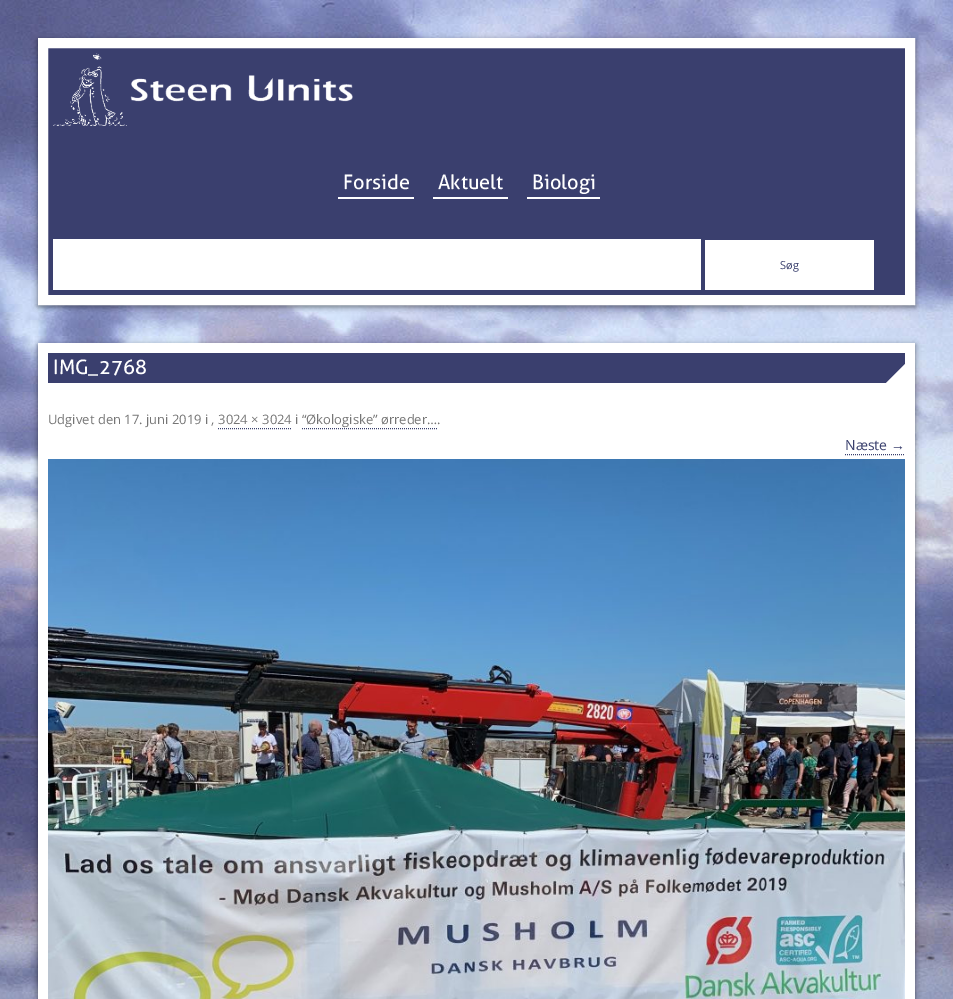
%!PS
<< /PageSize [953 999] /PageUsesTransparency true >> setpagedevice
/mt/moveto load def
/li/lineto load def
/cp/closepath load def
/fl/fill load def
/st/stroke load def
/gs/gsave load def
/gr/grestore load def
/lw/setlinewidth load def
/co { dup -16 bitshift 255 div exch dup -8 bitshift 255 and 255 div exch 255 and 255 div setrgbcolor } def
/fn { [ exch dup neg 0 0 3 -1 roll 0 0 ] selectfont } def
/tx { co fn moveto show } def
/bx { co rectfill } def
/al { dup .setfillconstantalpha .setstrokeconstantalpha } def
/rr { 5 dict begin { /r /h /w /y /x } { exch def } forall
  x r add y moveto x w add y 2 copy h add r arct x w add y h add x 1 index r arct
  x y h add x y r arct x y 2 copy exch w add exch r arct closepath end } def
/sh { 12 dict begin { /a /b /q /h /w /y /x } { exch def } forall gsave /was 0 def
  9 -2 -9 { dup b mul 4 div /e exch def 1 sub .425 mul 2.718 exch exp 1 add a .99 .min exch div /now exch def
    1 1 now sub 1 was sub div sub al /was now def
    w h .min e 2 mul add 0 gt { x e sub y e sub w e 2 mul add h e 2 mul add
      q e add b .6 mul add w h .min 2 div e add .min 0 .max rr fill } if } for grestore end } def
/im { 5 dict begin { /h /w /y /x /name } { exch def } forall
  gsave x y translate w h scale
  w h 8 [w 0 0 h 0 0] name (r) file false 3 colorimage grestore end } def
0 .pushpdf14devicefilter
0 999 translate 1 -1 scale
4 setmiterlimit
0 0 953 999 16#FFFFFF bx
(media/1.raw) 0 0 953 999 im
16#000000 co
38 40 877 267 0 3 .5 sh
16#3A3F6E co
43 43 mt 910 43 li 910 300 li 43 300 li cp gs fl gr
16#FFFFFF co
10 lw
st
(media/2.raw) 53 53 300 73 im
338 197 76 2 16#FFFFFF bx
433 197 75 2 16#FFFFFF bx
527 197 73 2 16#FFFFFF bx
53 239 648 51 16#FFFFFF bx
705 240 169 50 16#FFFFFF bx
16#000000 co
38 345 877 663 0 3 .5 sh
38 343 877 656 16#FFFFFF bx
48 353 857 30 16#3A3F6E bx
(media/3.raw) 886 364 19 19 im
16#393F6D co
1 lw
[1 1] 0 setdash
218 428.5 mt 292 428.5 li st
302 428.5 mt 437 428.5 li st
845 454.5 mt 905 454.5 li st
(media/4.raw) 48 459 857 540 im
(Forside) 343 189 /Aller-Regular 20 16#FFFFFF tx
(Aktuelt) 438 189 /Aller-Regular 20 16#FFFFFF tx
(Biologi) 532 189 /Aller-Regular 20 16#FFFFFF tx
(Søg) 780 269 /OpenSans-Regular 11 16#393F6D tx
(IMG_2768) 53 374 /Aller-Regular 20 16#FFFFFF tx
(Udgivet den 17. juni 2019 i , 3024 × 3024 i “Økologiske” ørreder….) 48 424 /OpenSans-Regular 13 16#757575 tx
(Næste) 845 450 /OpenSans-Regular 14 16#393F6D tx
(→) 891 450 /LiberationSans-Regular 14 16#393F6D tx
.poppdf14devicefilter showpage
